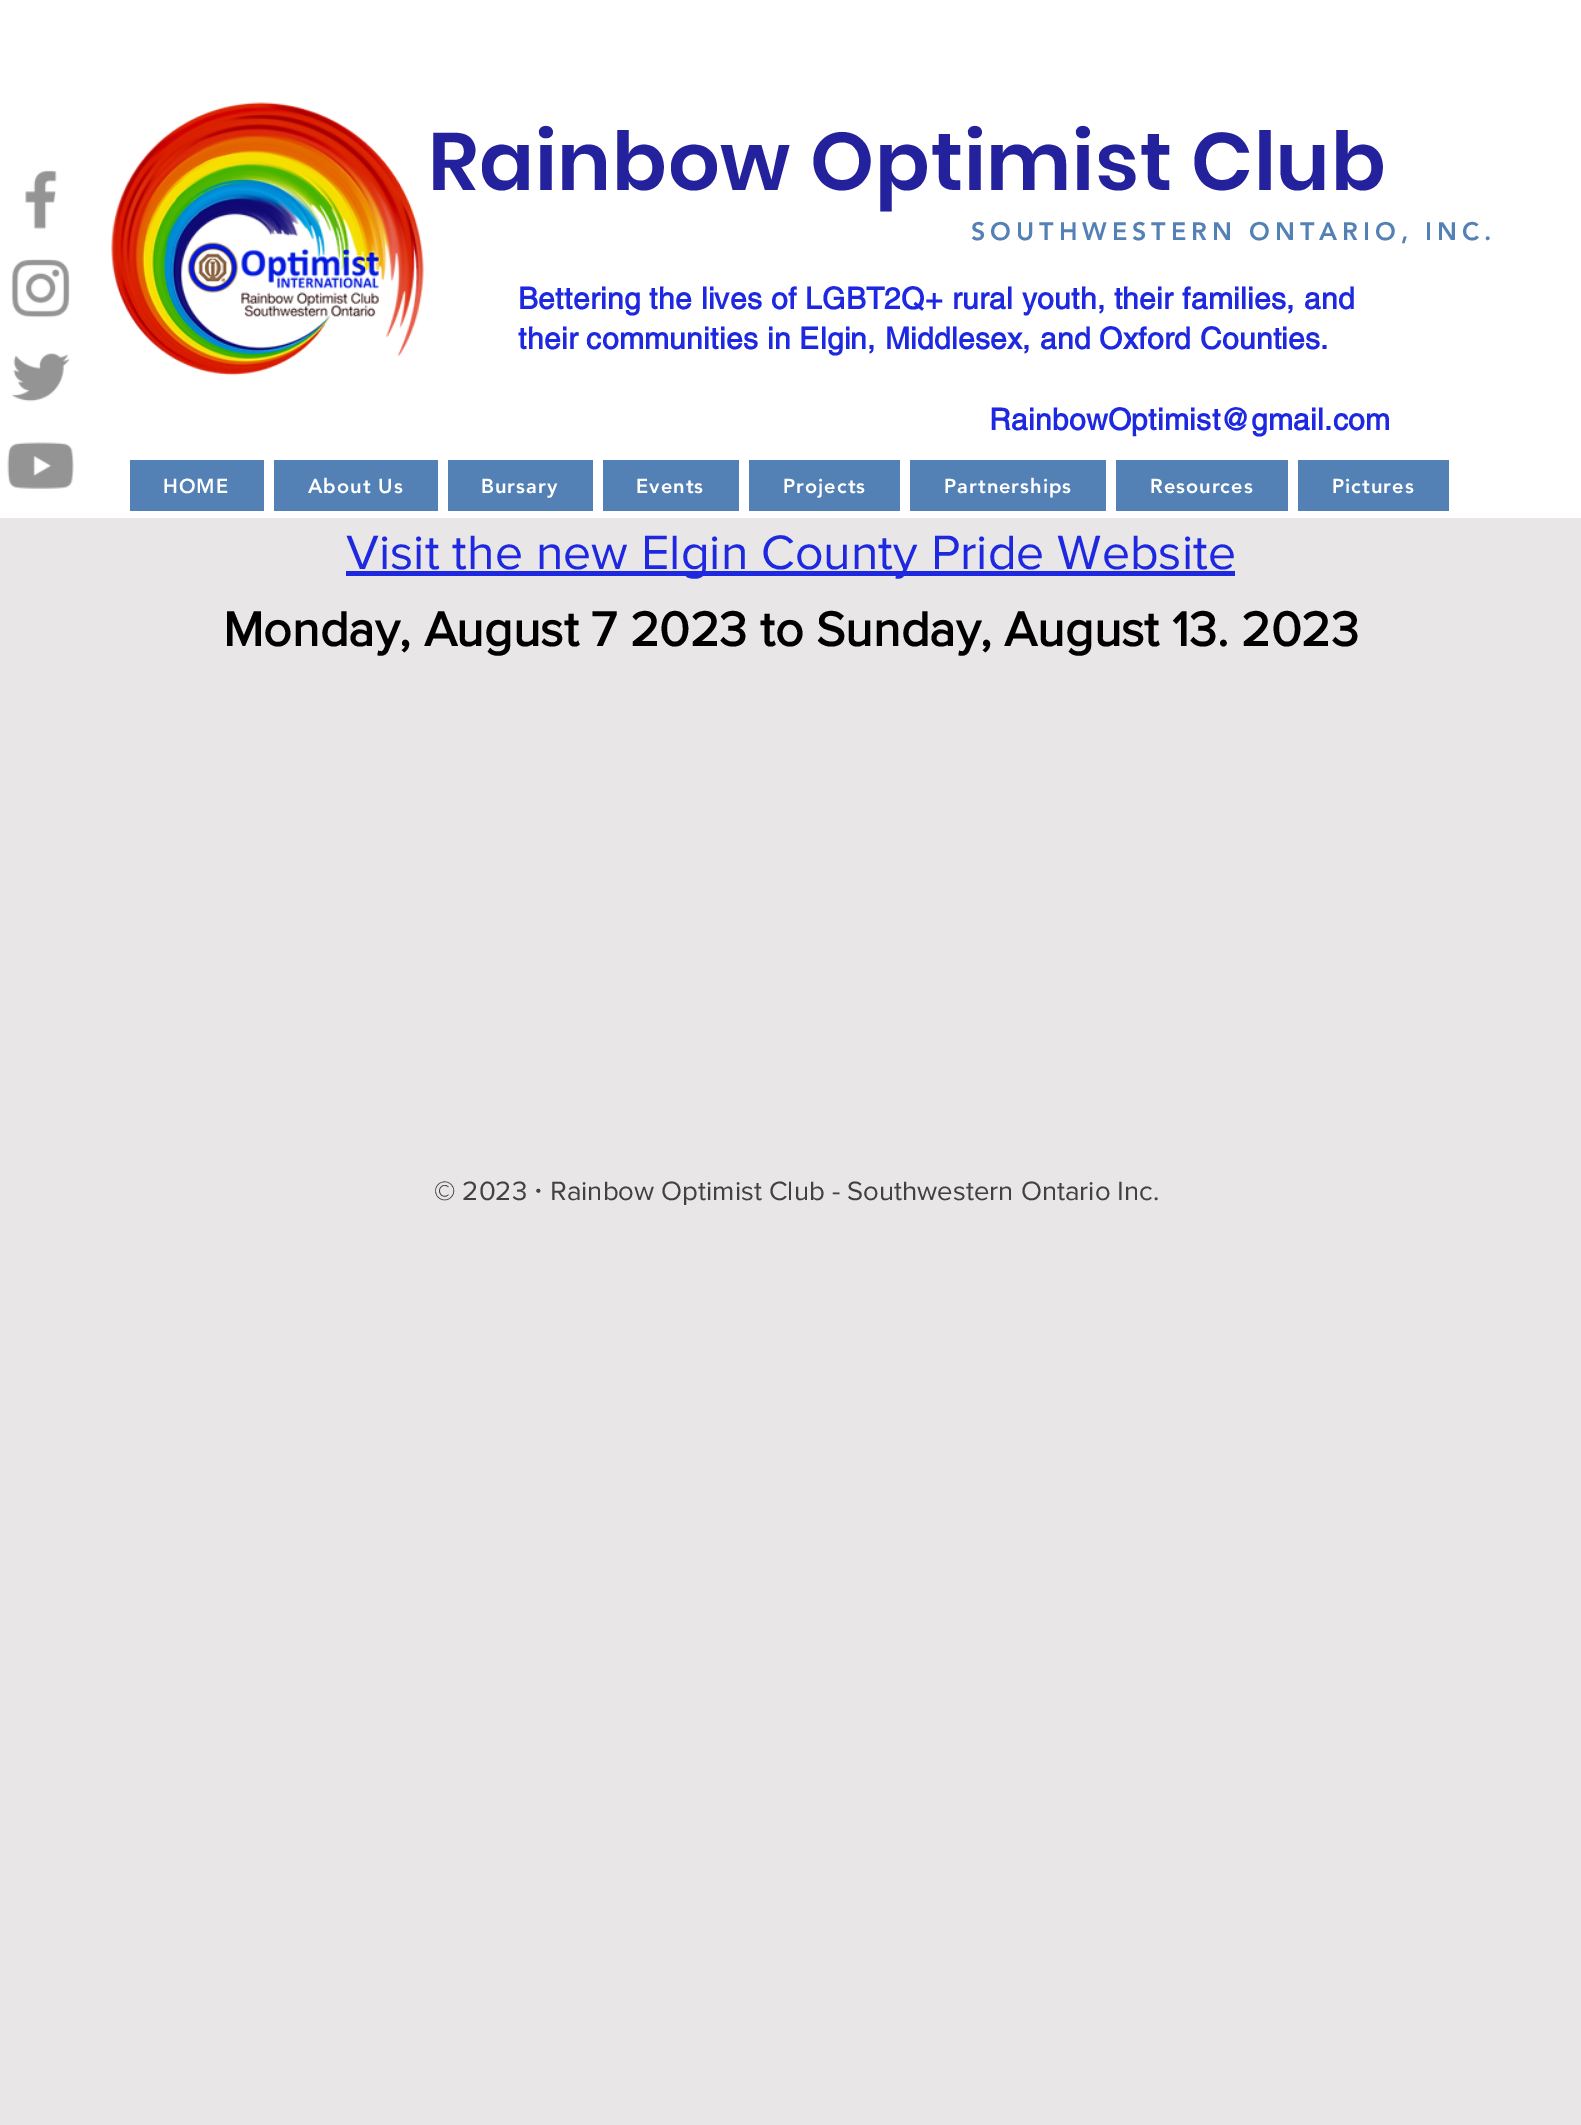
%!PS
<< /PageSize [1581 2125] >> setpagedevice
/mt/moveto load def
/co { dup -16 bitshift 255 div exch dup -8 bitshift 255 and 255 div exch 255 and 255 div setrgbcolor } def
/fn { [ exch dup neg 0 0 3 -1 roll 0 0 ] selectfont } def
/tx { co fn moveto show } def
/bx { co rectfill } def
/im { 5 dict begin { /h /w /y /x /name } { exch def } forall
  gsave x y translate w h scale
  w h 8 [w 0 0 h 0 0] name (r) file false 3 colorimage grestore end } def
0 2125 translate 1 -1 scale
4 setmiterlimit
0 0 1581 2125 16#E8E6E6 bx
0 0 1581 518 16#FFFFFF bx
(media/1.raw) 25 170 32 59 im
(media/2.raw) 11 259 59 59 im
(media/3.raw) 12 353 58 49 im
(media/4.raw) 7 442 67 47 im
(media/5.raw) 111 102 313 274 im
130 460 134 51 16#5481B5 bx
274 460 164 51 16#5481B5 bx
448 460 145 51 16#5481B5 bx
603 460 136 51 16#5481B5 bx
749 460 151 51 16#5481B5 bx
910 460 196 51 16#5481B5 bx
1116 460 172 51 16#5481B5 bx
1298 460 151 51 16#5481B5 bx
346 571 889 5 16#1D28E0 bx
/Poppins-SemiBold 81.25 fn
16#23219C co
428 190 mt .8 0 (Rainbow Optimist Club) ashow
/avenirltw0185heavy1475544-Black 25 fn
16#5481B5 co
971 240 mt 5 0 (SOUTHWESTERN ONTARIO, INC.) ashow
/helvetica-Bold 30 fn
16#1D28E0 co
518 309 mt .3 0 (Bettering the lives of LGBT2Q+ rural youth, their families, and) ashow
518 349 mt .3 0 (their communities in Elgin, Middlesex, and Oxford Counties.) ashow
989 430 mt .3 0 (RainbowOptimist@gmail.com) ashow
/avenirltw0185heavy1475544-Black 20 fn
16#FFFFFF co
163 493 mt 1 0 (HOME) ashow
308 493 mt 1 0 (About Us) ashow
481 493 mt 1 0 (Bursary) ashow
636 493 mt 1 0 (Events) ashow
783 493 mt 1 0 (Projects) ashow
944 493 mt 1 0 (Partnerships) ashow
1150 493 mt 1 0 (Resources) ashow
1332 493 mt 1 0 (Pictures) ashow
(Visit the new Elgin County Pride Website) 346 569 /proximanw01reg-Regular 50 16#1D28E0 tx
(Monday, August 7 2023 to Sunday, August 13. 2023) 223 646 /proximanw01reg-Bold 50 16#000000 tx
(© 2023) 434 1200 /proximanw01reg-Regular 27.5 16#414141 tx
(·) 534 1200 /proximanw01reg-Regular 38 16#414141 tx
(Rainbow Optimist Club - Southwestern Ontario Inc.) 550 1200 /proximanw01reg-Regular 27.5 16#414141 tx
showpage
